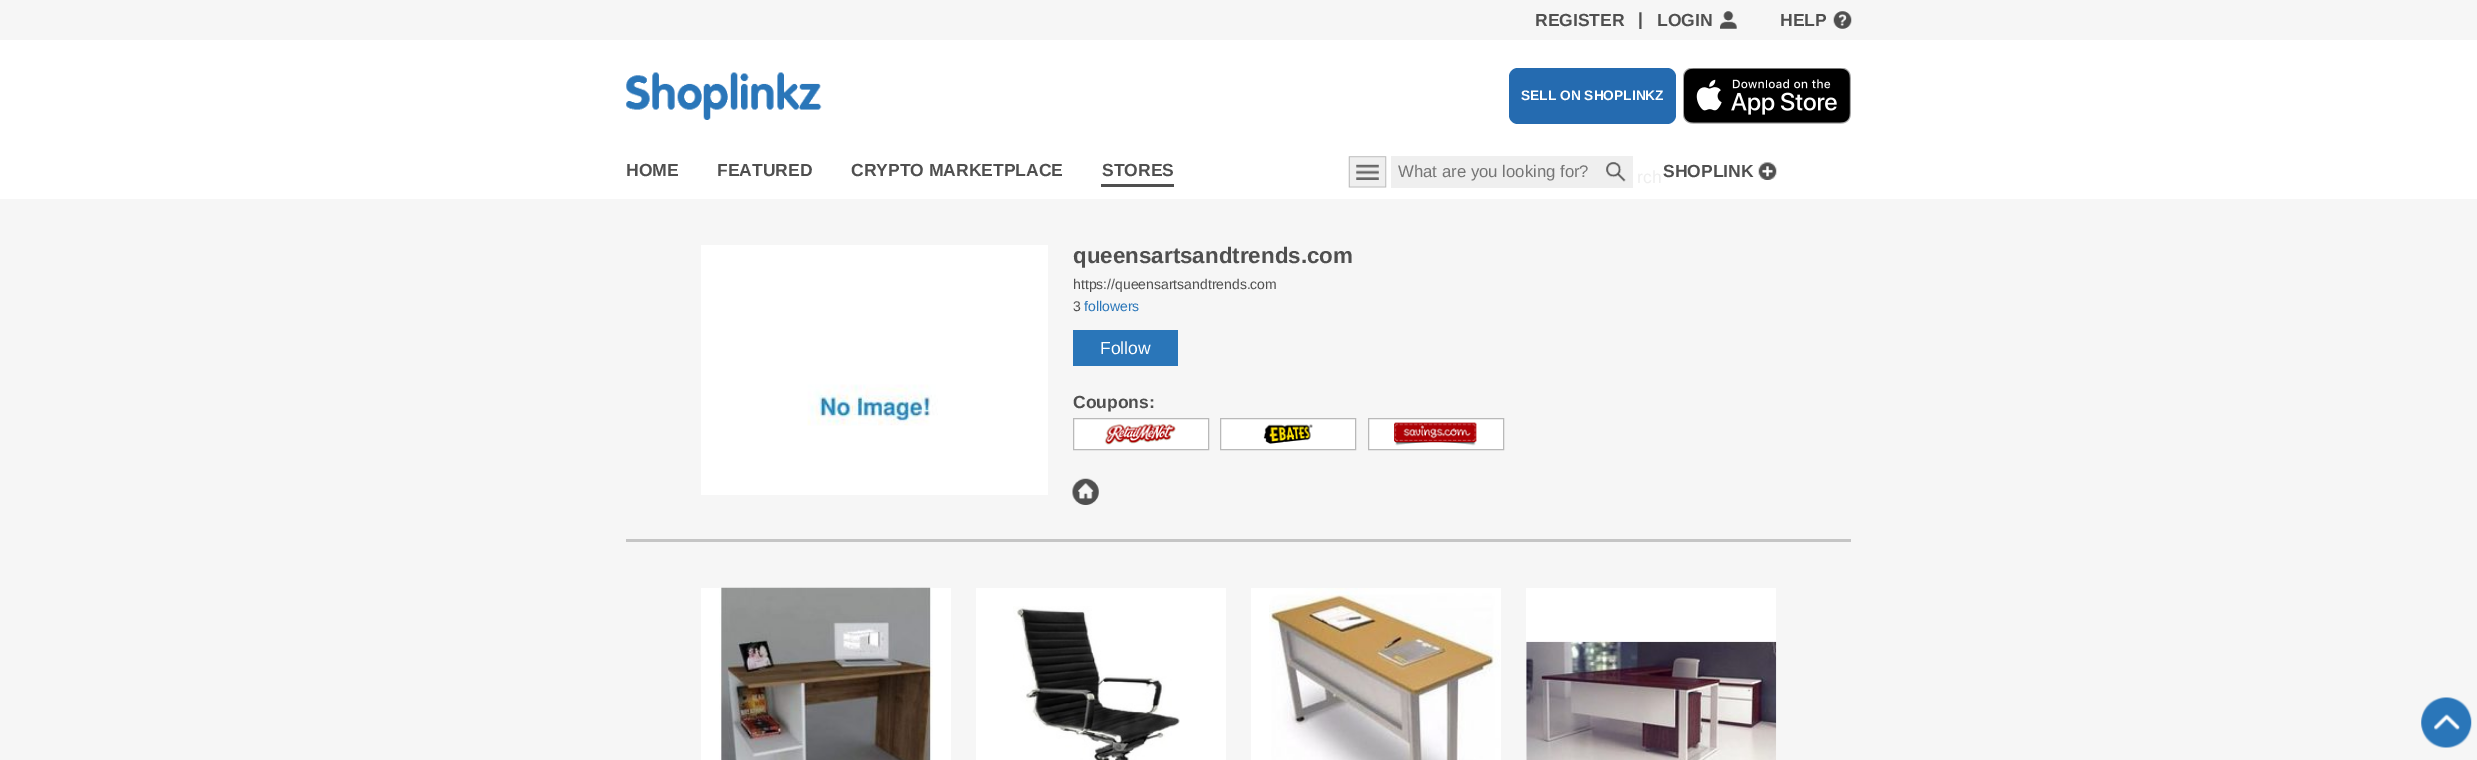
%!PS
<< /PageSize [2477 760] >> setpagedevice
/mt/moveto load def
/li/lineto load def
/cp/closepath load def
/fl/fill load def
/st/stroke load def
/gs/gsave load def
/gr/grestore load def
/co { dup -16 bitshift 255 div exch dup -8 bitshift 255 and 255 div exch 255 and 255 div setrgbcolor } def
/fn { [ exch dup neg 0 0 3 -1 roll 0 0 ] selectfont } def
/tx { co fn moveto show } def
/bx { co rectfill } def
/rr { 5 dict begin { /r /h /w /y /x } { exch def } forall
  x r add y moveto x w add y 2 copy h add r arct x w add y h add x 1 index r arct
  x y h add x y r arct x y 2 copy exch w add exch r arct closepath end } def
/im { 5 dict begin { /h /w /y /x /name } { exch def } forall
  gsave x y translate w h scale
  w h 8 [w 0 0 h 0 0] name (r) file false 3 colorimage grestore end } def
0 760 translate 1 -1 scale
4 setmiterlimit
0 0 2477 760 16#F6F6F6 bx
(media/1.raw) 1720 11 17 18 im
(media/2.raw) 1833 11 19 18 im
0 40 2477 159 16#FFFFFF bx
(media/3.raw) 626 72 196 48 im
16#256BB0 co
1509 68 167 56 9 rr fl
(media/4.raw) 1683 68 168 56 im
1101 184 73 3 16#4F4F4F bx
(media/5.raw) 1348 156 39 32 im
1391 156 242 32 16#EFEFEF bx
(media/6.raw) 1606 162 20 20 im
(media/7.raw) 1758 162 19 18 im
701 245 347 250 16#FFFFFF bx
(media/8.raw) 807 384 131 42 im
1073 330 105 36 16#2A76B9 bx
16#FFFFFF co
1073.5 418.5 mt 1208.5 418.5 li 1208.5 449.5 li 1073.5 449.5 li cp gs fl gr
16#B9B9B9 co
st
16#FFFFFF co
1220.5 418.5 mt 1355.5 418.5 li 1355.5 449.5 li 1220.5 449.5 li cp gs fl gr
16#B9B9B9 co
st
16#FFFFFF co
1368.5 418.5 mt 1503.5 418.5 li 1503.5 449.5 li 1368.5 449.5 li cp gs fl gr
16#B9B9B9 co
st
(media/9.raw) 1104 423 72 22 im
(media/10.raw) 1263 424 50 20 im
(media/11.raw) 1394 422 83 24 im
(media/12.raw) 1072 478 27 27 im
626 539 1225 3 16#C5C5C5 bx
701 588 250 172 16#FFFFFF bx
(media/13.raw) 719 587 214 173 im
976 588 250 172 16#FFFFFF bx
(media/14.raw) 1013 606 167 154 im
1251 588 250 172 16#FFFFFF bx
(media/15.raw) 1269 588 231 172 im
1526 588 250 172 16#FFFFFF bx
(media/16.raw) 1526 640 251 120 im
(media/17.raw) 2421 697 51 51 im
(REGISTER) 1535 26 /LiberationSans-Bold 17.5 16#4F4F4F tx
(|) 1638 25 /LiberationSans-Bold 17.5 16#4F4F4F tx
(LOGIN) 1657 26 /LiberationSans-Bold 17.5 16#4F4F4F tx
(HELP) 1780 26 /LiberationSans-Bold 17.5 16#4F4F4F tx
(SELL ON SHOPLINKZ) 1521 100 /LiberationSans-Bold 13.75 16#FFFFFF tx
(HOME) 626 176 /LiberationSans-Bold 17.5 16#4F4F4F tx
(FEATURED) 717 176 /LiberationSans-Bold 17.5 16#4F4F4F tx
(CRYPTO MARKETPLACE) 851 176 /LiberationSans-Bold 17.5 16#4F4F4F tx
(STORES) 1102 176 /LiberationSans-Bold 17.5 16#4F4F4F tx
(What are you looking for?) 1398 177 /LiberationSans-Regular 16.75 16#757575 tx
(rch) 1637 183 /LiberationSans-Regular 17.5 16#EEEEEE tx
(SHOPLINK) 1663 177 /LiberationSans-Bold 17.5 16#4F4F4F tx
(queensartsandtrends.com) 1073 263 /LiberationSans-Bold 22.4 16#4F4F4F tx
(https://queensartsandtrends.com) 1073 289 /LiberationSans-Regular 14 16#4F4F4F tx
(3) 1073 311 /LiberationSans-Regular 14 16#4F4F4F tx
(followers) 1084 311 /LiberationSans-Regular 14 16#2A76B9 tx
(Follow) 1100 354 /LiberationSans-Regular 17.5 16#FFFFFF tx
(Coupons:) 1073 408 /LiberationSans-Bold 17.5 16#4F4F4F tx
showpage
